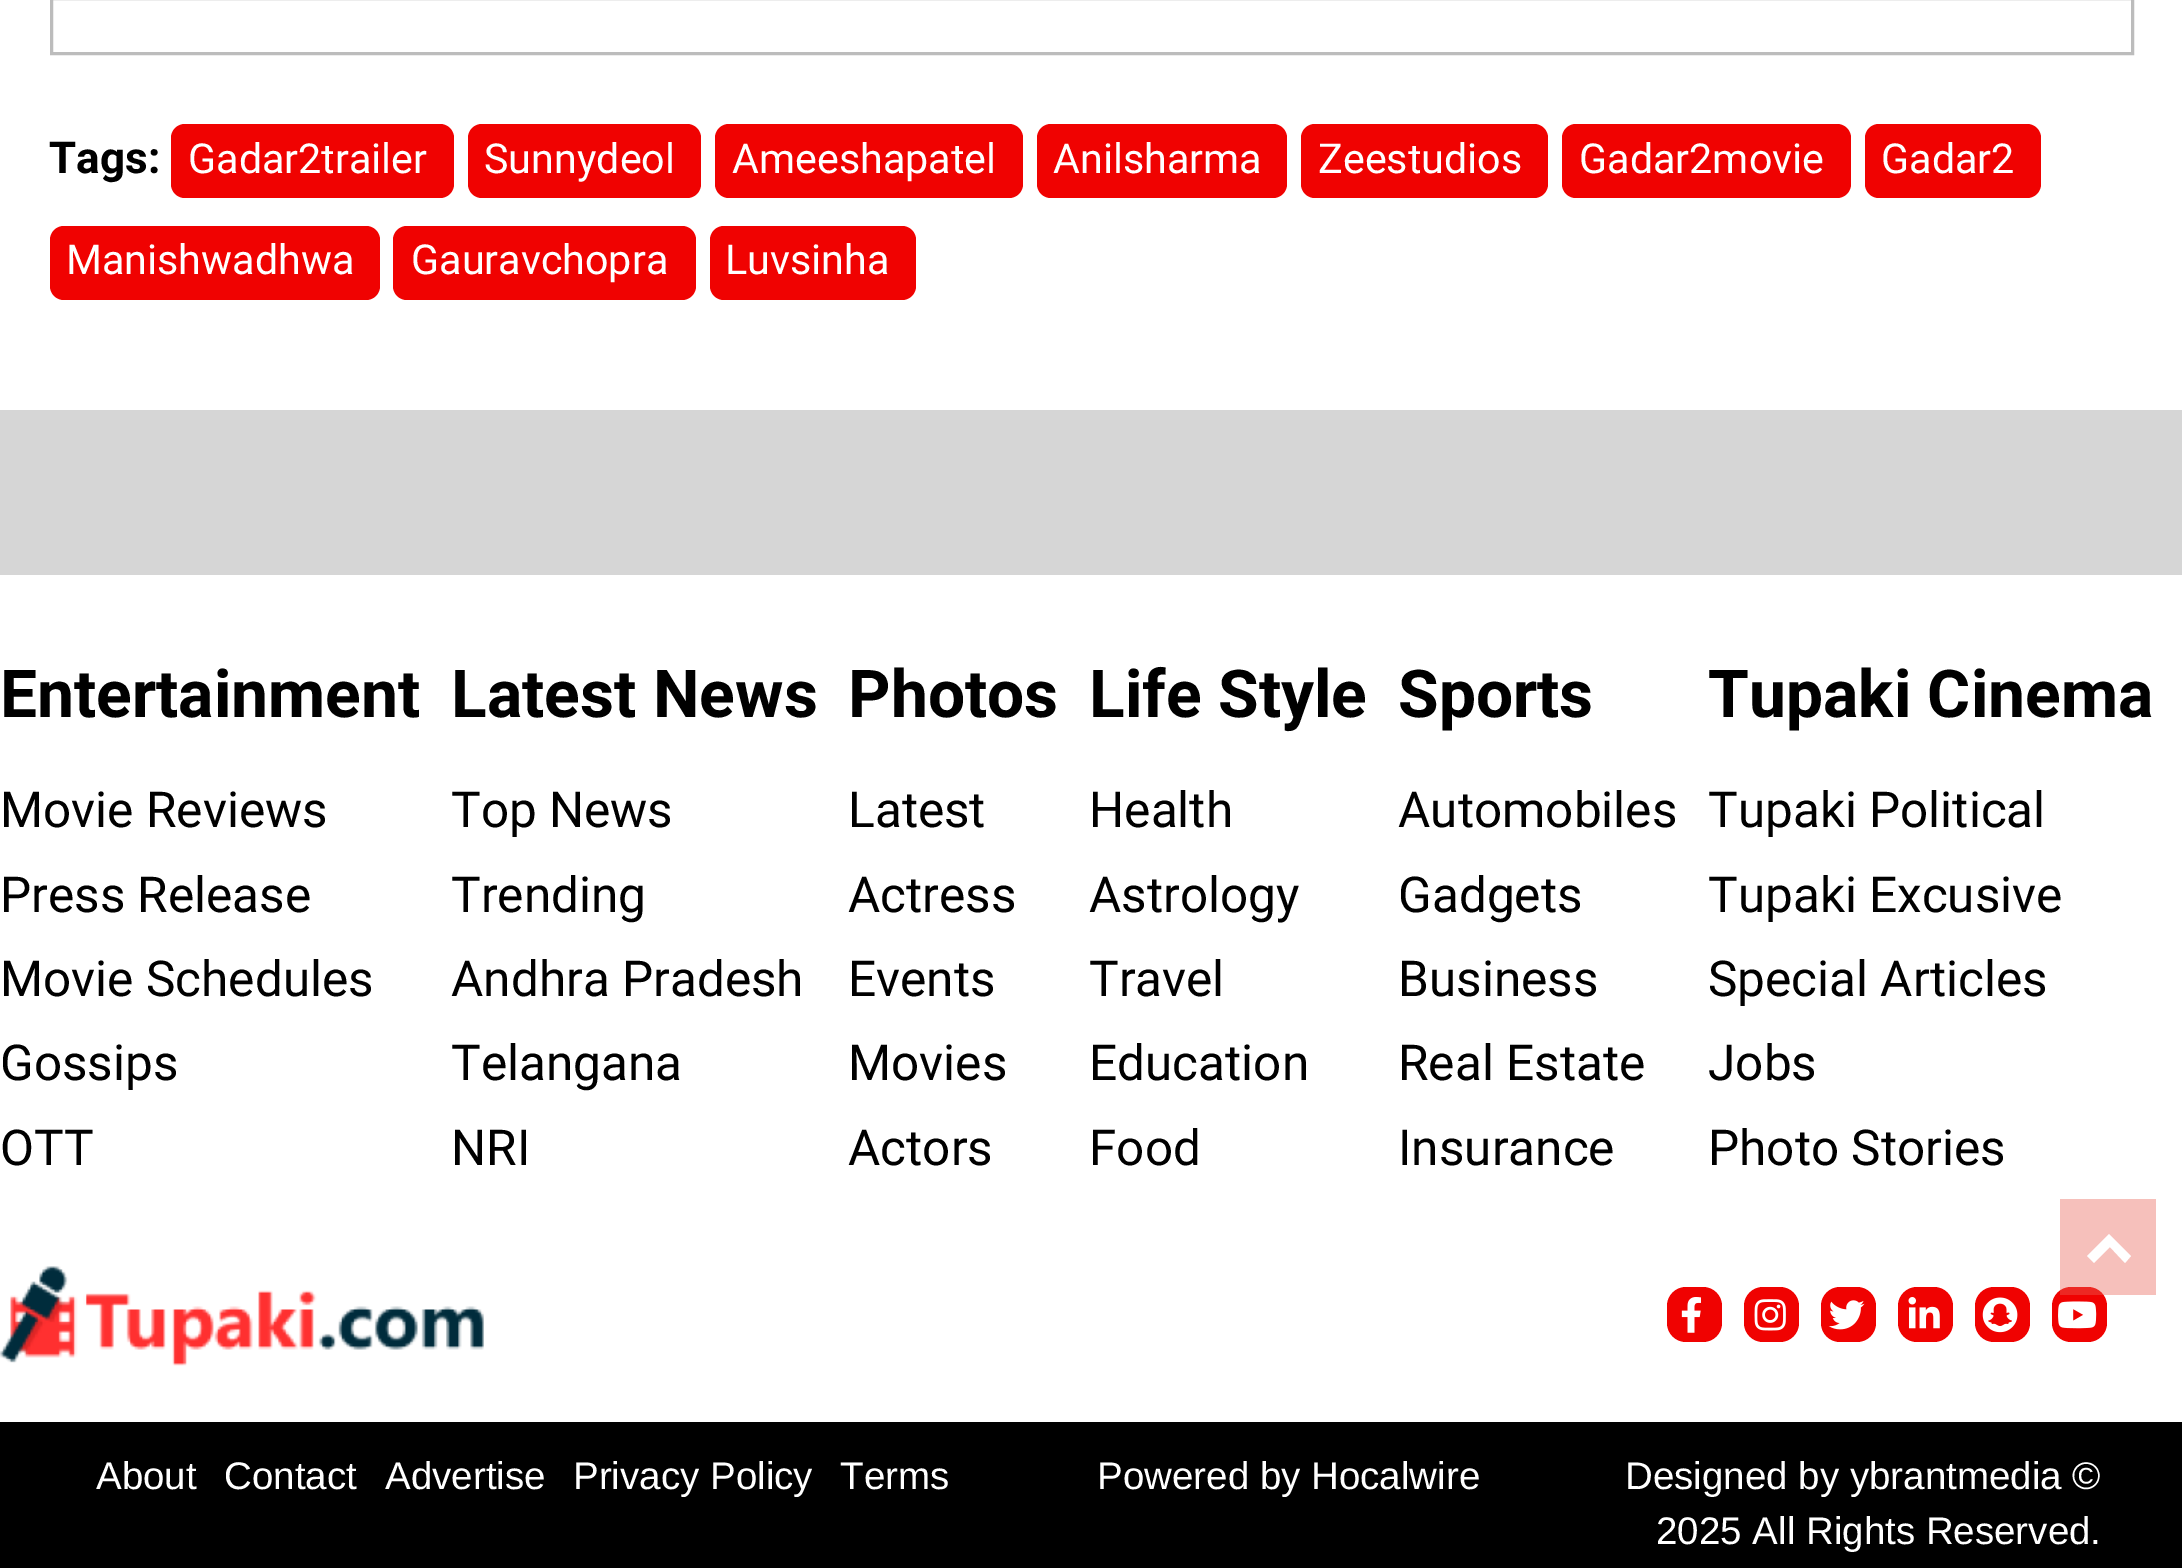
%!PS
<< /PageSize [2182 1568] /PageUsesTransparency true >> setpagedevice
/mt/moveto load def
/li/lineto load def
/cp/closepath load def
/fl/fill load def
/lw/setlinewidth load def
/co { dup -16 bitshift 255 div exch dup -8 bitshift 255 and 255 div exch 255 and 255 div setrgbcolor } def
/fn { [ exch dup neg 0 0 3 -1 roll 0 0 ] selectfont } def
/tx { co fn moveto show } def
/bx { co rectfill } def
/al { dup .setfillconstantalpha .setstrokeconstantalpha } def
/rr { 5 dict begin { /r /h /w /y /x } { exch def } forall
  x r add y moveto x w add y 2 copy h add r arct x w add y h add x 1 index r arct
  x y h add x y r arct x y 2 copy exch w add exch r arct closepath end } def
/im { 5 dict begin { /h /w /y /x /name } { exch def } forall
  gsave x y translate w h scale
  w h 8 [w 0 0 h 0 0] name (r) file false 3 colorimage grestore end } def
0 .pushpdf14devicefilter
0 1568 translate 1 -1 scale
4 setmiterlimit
0 0 2182 1568 16#D6D6D6 bx
0 0 2182 410 16#FFFFFF bx
16#BCBCBC co
3 lw
51.5 -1.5 2081 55 rectstroke
16#F00201 co
171 124 283 74 14 rr fl
468 124 233 74 14 rr fl
715 124 308 74 14 rr fl
1037 124 250 74 14 rr fl
1301 124 247 74 14 rr fl
1562 124 289 74 14 rr fl
1865 124 176 74 14 rr fl
50 226 330 74 14 rr fl
393 226 303 74 14 rr fl
710 226 206 74 14 rr fl
0 575 2182 847 16#FFFFFF bx
(media/1.raw) 0 1266 484 100 im
16#F00201 co
1667 1287 55 55 19 rr fl
(media/2.raw) 1681 1297 20 36 im
1744 1287 55 55 19 rr fl
(media/3.raw) 1754 1299 32 32 im
1821 1287 55 55 19 rr fl
(media/4.raw) 1828 1300 37 30 im
1898 1287 55 55 19 rr fl
(media/5.raw) 1908 1297 32 32 im
1975 1287 55 55 19 rr fl
(media/6.raw) 1982 1297 36 36 im
2052 1287 55 55 19 rr fl
(media/7.raw) 2058 1301 39 28 im
0 1422 2182 146 16#000000 bx
0.4 al
2060 1199 96 96 16#E86256 bx
1 al
16#FFFFFF co
2109 1234 mt 2131 1256 li 2125 1263 li 2110 1247 li 2094 1263 li 2087 1256 li cp fl
(Tags:) 49 173 /Roboto-Bold 44 16#000000 tx
(Gadar2trailer) 188 173 /Roboto-Regular 41.25 16#FFFFFF tx
(Sunnydeol) 484 173 /Roboto-Regular 41.25 16#FFFFFF tx
(Ameeshapatel) 732 173 /Roboto-Regular 41.25 16#FFFFFF tx
(Anilsharma) 1053 173 /Roboto-Regular 41.25 16#FFFFFF tx
(Zeestudios) 1318 173 /Roboto-Regular 41.25 16#FFFFFF tx
(Gadar2movie) 1579 173 /Roboto-Regular 41.25 16#FFFFFF tx
(Gadar2) 1881 173 /Roboto-Regular 41.25 16#FFFFFF tx
(Manishwadhwa) 66 274 /Roboto-Regular 41.25 16#FFFFFF tx
(Gauravchopra) 411 274 /Roboto-Regular 41.25 16#FFFFFF tx
(Luvsinha) 725 274 /Roboto-Regular 41.25 16#FFFFFF tx
(Entertainment) 0 717 /Roboto-Bold 66 16#000000 tx
(Movie Reviews) 0 827 /Roboto-Regular 49.5 16#000000 tx
(Press Release) 0 912 /Roboto-Regular 49.5 16#000000 tx
(Movie Schedules) 0 996 /Roboto-Regular 49.5 16#000000 tx
(Gossips) 0 1080 /Roboto-Regular 49.5 16#000000 tx
(OTT) 0 1165 /Roboto-Regular 49.5 16#000000 tx
(Latest News) 451 717 /Roboto-Bold 66 16#000000 tx
(Top News) 451 827 /Roboto-Regular 49.5 16#000000 tx
(Trending) 451 912 /Roboto-Regular 49.5 16#000000 tx
(Andhra Pradesh) 451 996 /Roboto-Regular 49.5 16#000000 tx
(Telangana) 451 1080 /Roboto-Regular 49.5 16#000000 tx
(NRI) 451 1165 /Roboto-Regular 49.5 16#000000 tx
(Photos) 848 717 /Roboto-Bold 66 16#000000 tx
(Latest) 848 827 /Roboto-Regular 49.5 16#000000 tx
(Actress) 848 912 /Roboto-Regular 49.5 16#000000 tx
(Events) 848 996 /Roboto-Regular 49.5 16#000000 tx
(Movies) 848 1080 /Roboto-Regular 49.5 16#000000 tx
(Actors) 848 1165 /Roboto-Regular 49.5 16#000000 tx
(Life Style) 1089 717 /Roboto-Bold 66 16#000000 tx
(Health) 1089 827 /Roboto-Regular 49.5 16#000000 tx
(Astrology) 1089 912 /Roboto-Regular 49.5 16#000000 tx
(Travel) 1089 996 /Roboto-Regular 49.5 16#000000 tx
(Education) 1089 1080 /Roboto-Regular 49.5 16#000000 tx
(Food) 1089 1165 /Roboto-Regular 49.5 16#000000 tx
(Sports) 1398 717 /Roboto-Bold 66 16#000000 tx
(Automobiles) 1398 827 /Roboto-Regular 49.5 16#000000 tx
(Gadgets) 1398 912 /Roboto-Regular 49.5 16#000000 tx
(Business) 1398 996 /Roboto-Regular 49.5 16#000000 tx
(Real Estate) 1398 1080 /Roboto-Regular 49.5 16#000000 tx
(Insurance) 1398 1165 /Roboto-Regular 49.5 16#000000 tx
(Tupaki Cinema) 1708 717 /Roboto-Bold 66 16#000000 tx
(Tupaki Political) 1708 827 /Roboto-Regular 49.5 16#000000 tx
(Tupaki Excusive) 1708 912 /Roboto-Regular 49.5 16#000000 tx
(Special Articles) 1708 996 /Roboto-Regular 49.5 16#000000 tx
(Jobs) 1708 1080 /Roboto-Regular 49.5 16#000000 tx
(Photo Stories) 1708 1165 /Roboto-Regular 49.5 16#000000 tx
(About) 96 1489 /LiberationSans-Regular 38.5 16#FFFFFF tx
(Contact) 224 1489 /LiberationSans-Regular 38.5 16#FFFFFF tx
(Advertise) 385 1489 /LiberationSans-Regular 38.5 16#FFFFFF tx
(Privacy Policy) 573 1489 /LiberationSans-Regular 38.5 16#FFFFFF tx
(Terms) 840 1489 /LiberationSans-Regular 38.5 16#FFFFFF tx
(Powered by Hocalwire) 1097 1489 /LiberationSans-Regular 38.5 16#FFFFFF tx
(Designed by ybrantmedia ©) 1625 1489 /LiberationSans-Regular 38.5 16#FFFFFF tx
(2025 All Rights Reserved.) 1656 1544 /LiberationSans-Regular 38.5 16#FFFFFF tx
.poppdf14devicefilter showpage
